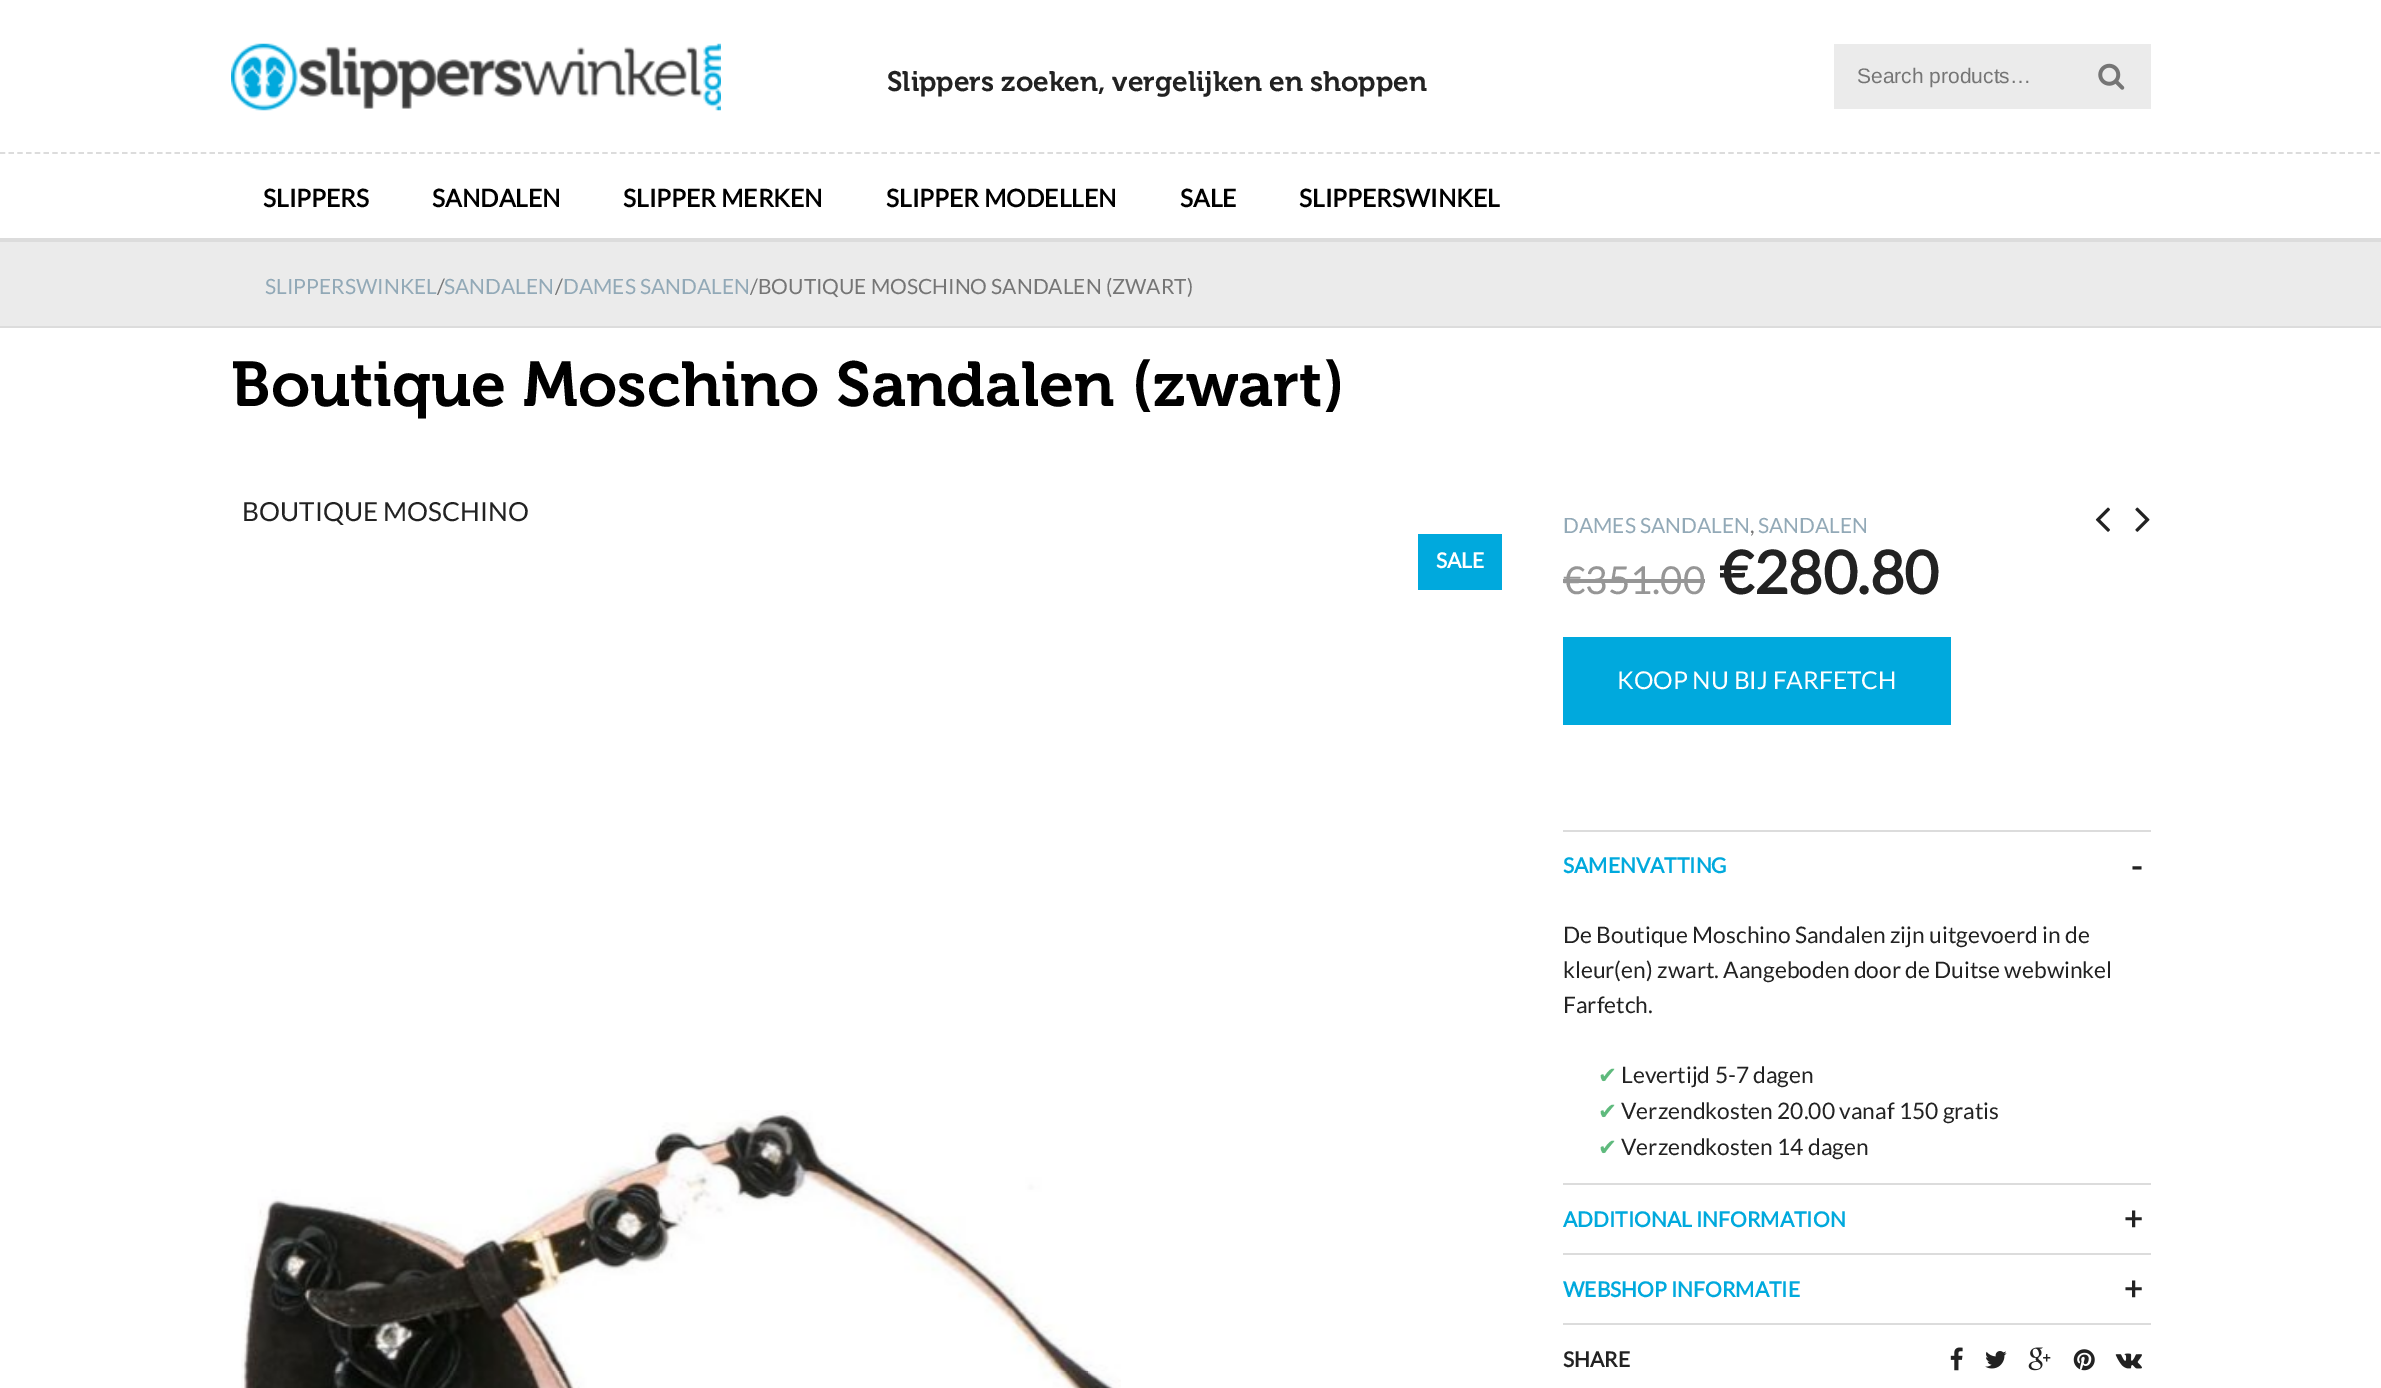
%!PS
<< /PageSize [2381 1388] >> setpagedevice
/mt/moveto load def
/li/lineto load def
/st/stroke load def
/lw/setlinewidth load def
/co { dup -16 bitshift 255 div exch dup -8 bitshift 255 and 255 div exch 255 and 255 div setrgbcolor } def
/fn { [ exch dup neg 0 0 3 -1 roll 0 0 ] selectfont } def
/tx { co fn moveto show } def
/bx { co rectfill } def
/im { 5 dict begin { /h /w /y /x /name } { exch def } forall
  gsave x y translate w h scale
  w h 8 [w 0 0 h 0 0] name (r) file false 3 colorimage grestore end } def
0 1388 translate 1 -1 scale
4 setmiterlimit
0 0 2381 1388 16#FFFFFF bx
(media/1.raw) 231 43 490 68 im
1834 44 317 65 16#EBEBEB bx
(media/2.raw) 2098 63 27 27 im
16#DCDCDC co
1.8 lw
[5.25 3.48] 0 setdash
0 153 mt 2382 153 li st
0 238 2381 4 16#DCDCDC bx
0 242 2381 84 16#EBEBEB bx
0 326 2381 2 16#DCDCDC bx
1418 534 84 56 16#00A9DD bx
(media/3.raw) 241 1110 880 278 im
(media/4.raw) 2095 507 15 25 im
(media/5.raw) 2135 507 15 25 im
1563 579 142 4 16#969696 bx
1563 637 388 88 16#00A9DD bx
1563 830 588 2 16#DCDCDC bx
1563 1183 588 2 16#DCDCDC bx
1563 1253 588 2 16#DCDCDC bx
1563 1323 588 2 16#DCDCDC bx
(media/6.raw) 1950 1347 13 24 im
(media/7.raw) 1985 1351 22 18 im
(media/8.raw) 2028 1347 23 24 im
(media/9.raw) 2073 1349 22 22 im
(media/10.raw) 2115 1353 27 16 im
(Slippers zoeken, vergelijken en shoppen) 887 91 /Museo-SemiBold 28 16#222222 tx
(Search products…) 1857 83 /LiberationSans-Regular 21 16#757575 tx
(SLIPPERS) 263 207 /Lato-Bold 24.5 16#000000 tx
(SANDALEN) 432 207 /Lato-Bold 24.5 16#000000 tx
(SLIPPER MERKEN) 623 207 /Lato-Bold 24.5 16#000000 tx
(SLIPPER MODELLEN) 886 207 /Lato-Bold 24.5 16#000000 tx
(SALE) 1180 207 /Lato-Bold 24.5 16#000000 tx
(SLIPPERSWINKEL) 1299 207 /Lato-Bold 24.5 16#000000 tx
(SLIPPERSWINKEL) 265 294 /Lato-Regular 21 16#92A9B7 tx
(/) 437 294 /Lato-Regular 21 16#757575 tx
(SANDALEN) 444 294 /Lato-Regular 21 16#92A9B7 tx
(/) 555 294 /Lato-Regular 21 16#757575 tx
(DAMES SANDALEN) 563 294 /Lato-Regular 21 16#92A9B7 tx
(/BOUTIQUE MOSCHINO SANDALEN \(ZWART\)) 750 294 /Lato-Regular 21 16#757575 tx
(Boutique Moschino Sandalen \(zwart\)) 231 406 /Museo-SemiBold 63 16#000000 tx
(BOUTIQUE MOSCHINO) 242 521 /Lato-Regular 26.25 16#222222 tx
(SALE) 1436 568 /Lato-Bold 21 16#FFFFFF tx
(DAMES SANDALEN) 1563 533 /Lato-Regular 21 16#92A9B7 tx
(,) 1750 533 /Lato-Regular 21 16#757575 tx
(SANDALEN) 1758 533 /Lato-Regular 21 16#92A9B7 tx
(€351.00) 1563 594 /Lato-Regular 38.5 16#969696 tx
(€280.80) 1719 594 /Lato-Bold 59.5 16#222222 tx
(KOOP NU BIJ FARFETCH) 1617 689 /Lato-Regular 24.5 16#FFFFFF tx
(SAMENVATTING) 1563 873 /Lato-Bold 21 16#00A9DD tx
(-) 2131 878 /Lato-Bold 32 16#222222 tx
(De Boutique Moschino Sandalen zijn uitgevoerd in de) 1563 943 /Lato-Regular 22.75 16#222222 tx
(kleur\(en\) zwart. Aangeboden door de Duitse webwinkel) 1563 978 /Lato-Regular 22.75 16#222222 tx
(Farfetch.) 1563 1013 /Lato-Regular 22.75 16#222222 tx
(✔) 1598 1083 /DejaVuSans-Regular 22.75 16#5FBA7D tx
(Levertijd 5-7 dagen) 1621 1083 /Lato-Regular 22.75 16#222222 tx
(✔) 1598 1119 /DejaVuSans-Regular 22.75 16#5FBA7D tx
(Verzendkosten 20.00 vanaf 150 gratis) 1621 1119 /Lato-Regular 22.75 16#222222 tx
(✔) 1598 1155 /DejaVuSans-Regular 22.75 16#5FBA7D tx
(Verzendkosten 14 dagen) 1621 1155 /Lato-Regular 22.75 16#222222 tx
(ADDITIONAL INFORMATION) 1563 1227 /Lato-Bold 21 16#00A9DD tx
(+) 2124 1230 /Lato-Bold 32 16#222222 tx
(WEBSHOP INFORMATIE) 1563 1297 /Lato-Bold 21 16#00A9DD tx
(+) 2124 1300 /Lato-Bold 32 16#222222 tx
(SHARE) 1563 1367 /Lato-Bold 21 16#222222 tx
showpage
